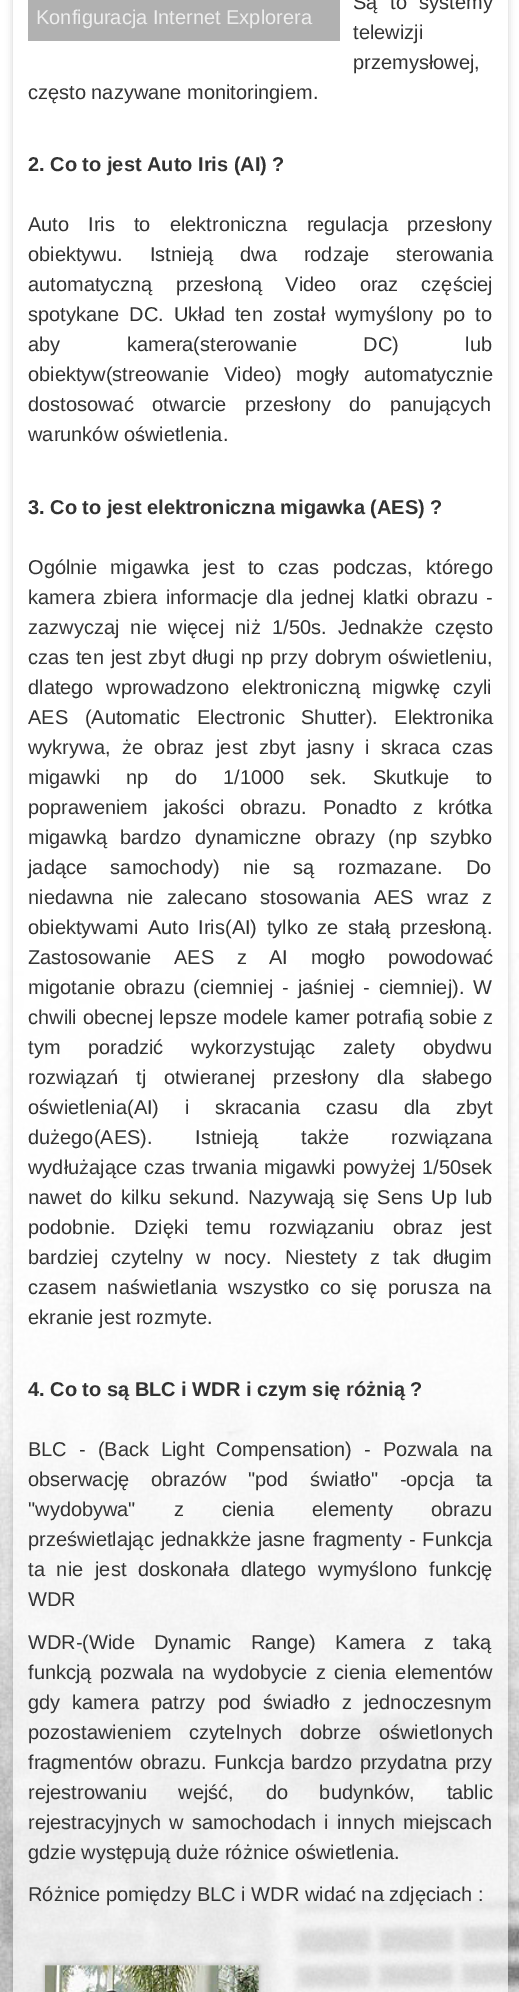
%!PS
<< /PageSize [519 1992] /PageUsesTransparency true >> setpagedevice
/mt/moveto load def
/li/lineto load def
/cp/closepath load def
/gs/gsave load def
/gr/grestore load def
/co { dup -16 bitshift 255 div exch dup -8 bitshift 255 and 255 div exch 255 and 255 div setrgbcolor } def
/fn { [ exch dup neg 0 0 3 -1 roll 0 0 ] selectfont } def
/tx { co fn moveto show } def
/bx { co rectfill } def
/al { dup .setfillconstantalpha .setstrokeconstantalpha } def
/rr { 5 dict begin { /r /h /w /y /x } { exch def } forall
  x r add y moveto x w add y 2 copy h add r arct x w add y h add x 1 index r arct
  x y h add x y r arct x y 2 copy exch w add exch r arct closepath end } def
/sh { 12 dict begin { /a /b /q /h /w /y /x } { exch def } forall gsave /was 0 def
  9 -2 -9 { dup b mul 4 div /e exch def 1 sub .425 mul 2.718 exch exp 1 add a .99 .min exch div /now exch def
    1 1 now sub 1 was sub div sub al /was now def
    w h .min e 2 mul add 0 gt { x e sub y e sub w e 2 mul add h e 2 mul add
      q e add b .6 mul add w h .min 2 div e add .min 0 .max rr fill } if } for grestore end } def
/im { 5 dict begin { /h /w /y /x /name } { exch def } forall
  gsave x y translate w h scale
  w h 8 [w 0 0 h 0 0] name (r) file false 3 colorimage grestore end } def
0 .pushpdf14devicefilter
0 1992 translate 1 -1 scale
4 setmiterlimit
0 0 519 1992 16#FFFFFF bx
(media/1.raw) 0 953 519 1039 im
gs
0 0 mt 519 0 li 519 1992 li 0 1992 li cp 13 -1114 mt 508 -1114 li 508 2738 li 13 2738 li cp eoclip newpath
16#646464 co
13 -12 495 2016 0 4 .3 sh
gr
0.7 al
13 0 495 1992 16#FFFFFF bx
1 al
16#646464 co
45 1965 214 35 0 2.5 .4 sh
(media/2.raw) 45 1965 214 27 im
28 0 312 41 16#B1B1B1 bx
/LiberationSans-Regular 20 fn
16#333333 co
353 9 mt 7 0 32 (Są to systemy) widthshow
(telewizji) 353 39 /LiberationSans-Regular 20 16#333333 tx
(przemysłowej,) 353 69 /LiberationSans-Regular 20 16#333333 tx
(często nazywane monitoringiem.) 28 99 /LiberationSans-Regular 20 16#333333 tx
(2. Co to jest Auto Iris \(AI\) ?) 28 171 /LiberationSans-Bold 20 16#333333 tx
/LiberationSans-Regular 20 fn
28 231 mt 13.5 0 32 (Auto Iris to elektroniczna regulacja przesłony) widthshow
28 261 mt 21.5 0 32 (obiektywu. Istnieją dwa rodzaje sterowania) widthshow
28 291 mt 17.5 0 32 (automatyczną przesłoną Video oraz częściej) widthshow
28 321 mt 4.5 0 32 (spotykane DC. Układ ten został wymyślony po to) widthshow
28 351 mt 61 0 32 (aby kamera\(sterowanie DC\) lub) widthshow
28 381 mt 9 0 32 (obiektyw\(streowanie Video\) mogły automatycznie) widthshow
28 411 mt 13 0 32 (dostosować otwarcie przesłony do panujących) widthshow
(warunków oświetlenia.) 28 441 /LiberationSans-Regular 20 16#333333 tx
(3. Co to jest elektroniczna migawka \(AES\) ?) 28 514 /LiberationSans-Bold 20 16#333333 tx
/LiberationSans-Regular 20 fn
28 574 mt 8 0 32 (Ogólnie migawka jest to czas podczas, którego) widthshow
28 604 mt 2.75 0 32 (kamera zbiera informacje dla jednej klatki obrazu -) widthshow
28 634 mt 5.75 0 32 (zazwyczaj nie więcej niż 1/50s. Jednakże często) widthshow
28 664 mt 1.25 0 32 (czas ten jest zbyt długi np przy dobrym oświetleniu,) widthshow
28 694 mt 7 0 32 (dlatego wprowadzono elektroniczną migwkę czyli) widthshow
28 724 mt 11 0 32 (AES \(Automatic Electronic Shutter\). Elektronika) widthshow
28 754 mt 6 0 32 (wykrywa, że obraz jest zbyt jasny i skraca czas) widthshow
28 784 mt 20.5 0 32 (migawki np do 1/1000 sek. Skutkuje to) widthshow
28 814 mt 10 0 32 (popraweniem jakości obrazu. Ponadto z krótka) widthshow
28 844 mt 7.75 0 32 (migawką bardzo dynamiczne obrazy \(np szybko) widthshow
28 874 mt 18 0 32 (jadące samochody\) nie są rozmazane. Do) widthshow
28 904 mt 7.75 0 32 (niedawna nie zalecano stosowania AES wraz z) widthshow
28 934 mt 4 0 32 (obiektywami Auto Iris\(AI\) tylko ze stałą przesłoną.) widthshow
28 964 mt 17 0 32 (Zastosowanie AES z AI mogło powodować) widthshow
28 994 mt 3.25 0 32 (migotanie obrazu \(ciemniej - jaśniej - ciemniej\). W) widthshow
28 1024 mt .5 0 32 (chwili obecnej lepsze modele kamer potrafią sobie z) widthshow
28 1054 mt 22 0 32 (tym poradzić wykorzystując zalety obydwu) widthshow
28 1084 mt 12.5 0 32 (rozwiązań tj otwieranej przesłony dla słabego) widthshow
28 1114 mt 20 0 32 (oświetlenia\(AI\) i skracania czasu dla zbyt) widthshow
28 1144 mt 37 0 32 (dużego\(AES\). Istnieją także rozwiązana) widthshow
28 1174 mt 1.5 0 32 (wydłużające czas trwania migawki powyżej 1/50sek) widthshow
28 1204 mt 3 0 32 (nawet do kilku sekund. Nazywają się Sens Up lub) widthshow
28 1234 mt 12.5 0 32 (podobnie. Dzięki temu rozwiązaniu obraz jest) widthshow
28 1264 mt 7.5 0 32 (bardziej czytelny w nocy. Niestety z tak długim) widthshow
28 1294 mt 5 0 32 (czasem naświetlania wszystko co się porusza na) widthshow
(ekranie jest rozmyte.) 28 1324 /LiberationSans-Regular 20 16#333333 tx
(4. Co to są BLC i WDR i czym się różnią ?) 28 1396 /LiberationSans-Bold 20 16#333333 tx
/LiberationSans-Regular 20 fn
28 1456 mt 6.5 0 32 (BLC - \(Back Light Compensation\) - Pozwala na) widthshow
28 1486 mt 16 0 32 (obserwację obrazów "pod światło" -opcja ta) widthshow
28 1516 mt 32.5 0 32 ("wydobywa" z cienia elementy obrazu) widthshow
28 1546 mt 1.5 0 32 (prześwietlając jednakkże jasne fragmenty - Funkcja) widthshow
28 1576 mt 6.25 0 32 (ta nie jest doskonała dlatego wymyślono funkcję) widthshow
(WDR) 28 1606 /LiberationSans-Regular 20 16#333333 tx
28 1649 mt 13.5 0 32 (WDR-\(Wide Dynamic Range\) Kamera z taką) widthshow
28 1679 mt 3.25 0 32 (funkcją pozwala na wydobycie z cienia elementów) widthshow
28 1709 mt 6.5 0 32 (gdy kamera patrzy pod świadło z jednoczesnym) widthshow
28 1739 mt 12 0 32 (pozostawieniem czytelnych dobrze oświetlonych) widthshow
28 1769 mt 1.75 0 32 (fragmentów obrazu. Funkcja bardzo przydatna przy) widthshow
28 1799 mt 26 0 32 (rejestrowaniu wejść, do budynków, tablic) widthshow
28 1829 mt 2.5 0 32 (rejestracyjnych w samochodach i innych miejscach) widthshow
(gdzie występują duże różnice oświetlenia.) 28 1859 /LiberationSans-Regular 20 16#333333 tx
(Różnice pomiędzy BLC i WDR widać na zdjęciach :) 28 1901 /LiberationSans-Regular 20 16#333333 tx
(Konfiguracja Internet Explorera) 36 24 /LiberationSans-Regular 20 16#EEEEEE tx
.poppdf14devicefilter showpage
